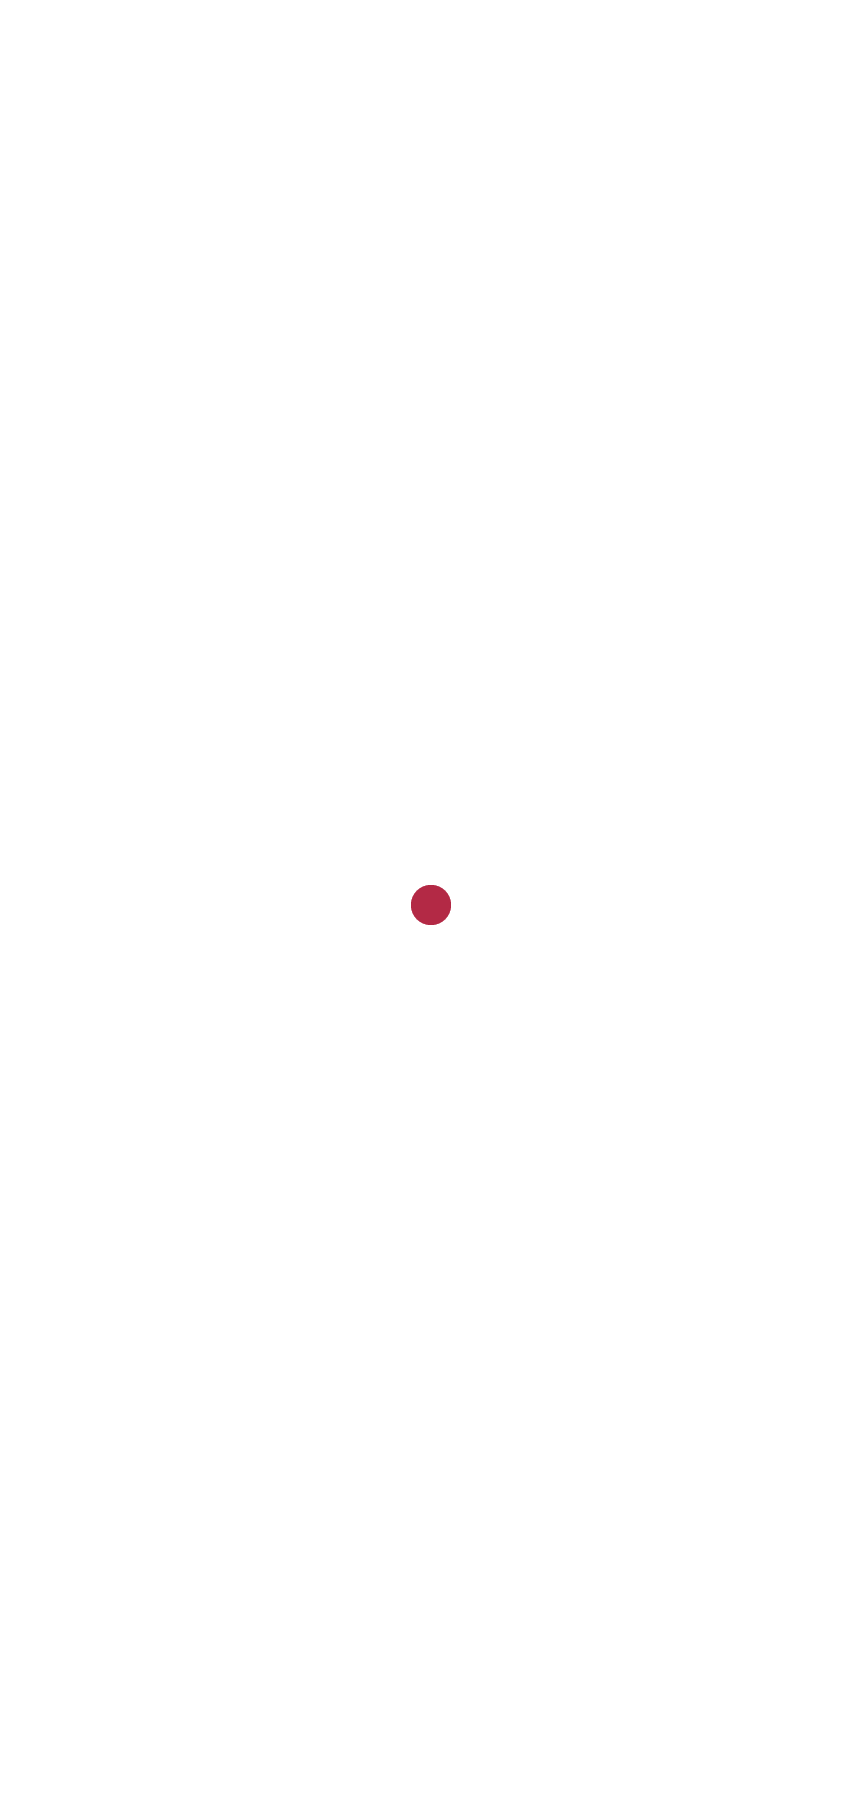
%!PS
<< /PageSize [861 1809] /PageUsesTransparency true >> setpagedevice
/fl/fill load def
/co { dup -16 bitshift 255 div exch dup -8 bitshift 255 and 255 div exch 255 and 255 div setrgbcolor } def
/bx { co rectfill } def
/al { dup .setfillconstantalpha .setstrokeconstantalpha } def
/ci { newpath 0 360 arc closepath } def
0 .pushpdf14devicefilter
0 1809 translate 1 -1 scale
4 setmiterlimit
0 0 861 1809 16#FFFFFF bx
16#C9667A co
431 905 20 ci fl
0.6 al
16#A50022 co
431 905 20 ci fl
.poppdf14devicefilter showpage
